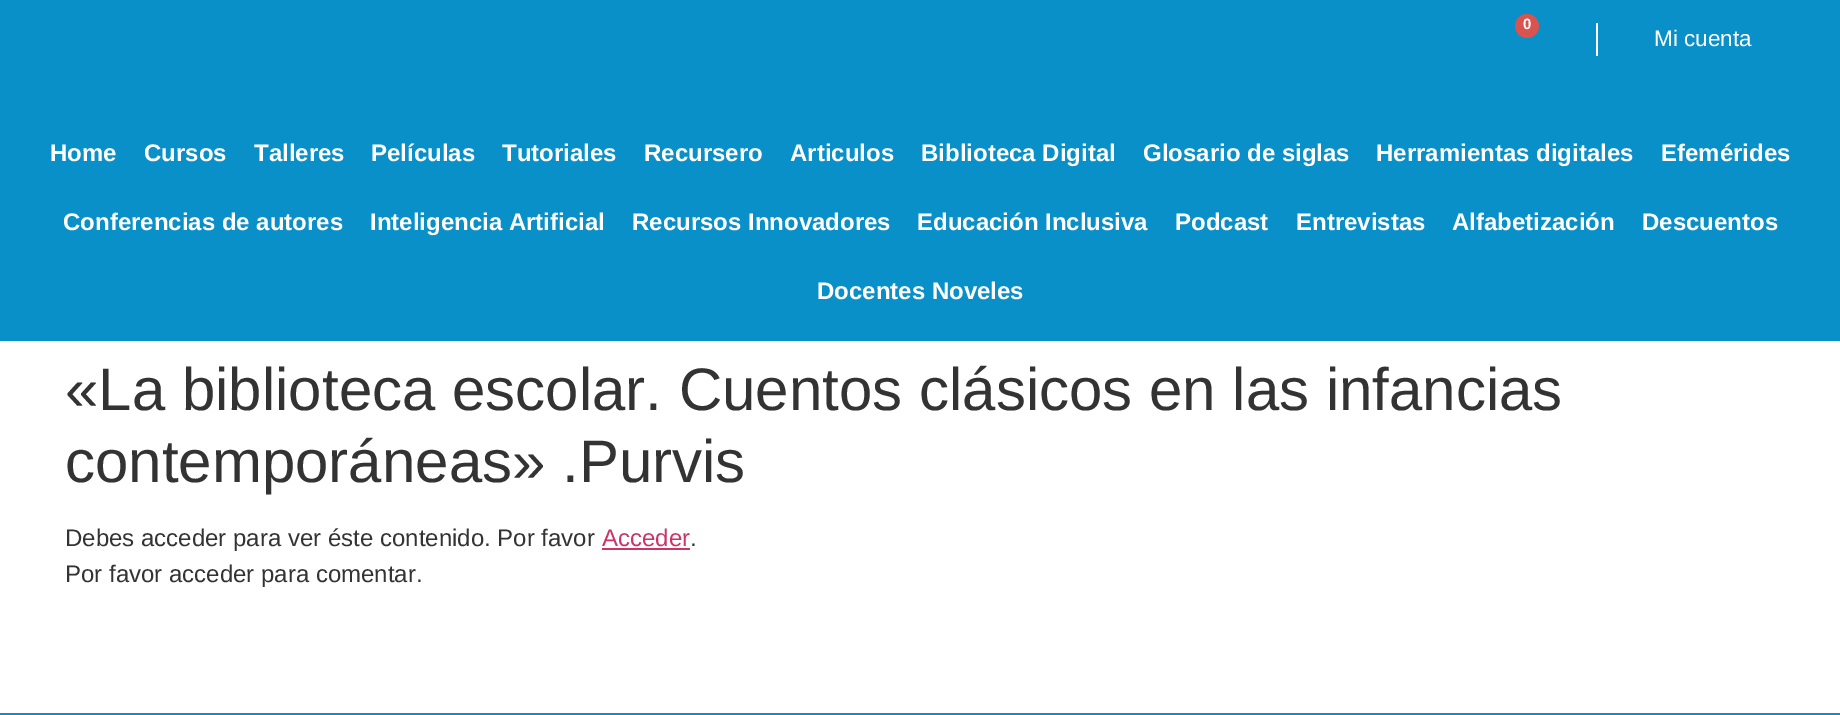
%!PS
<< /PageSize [1840 715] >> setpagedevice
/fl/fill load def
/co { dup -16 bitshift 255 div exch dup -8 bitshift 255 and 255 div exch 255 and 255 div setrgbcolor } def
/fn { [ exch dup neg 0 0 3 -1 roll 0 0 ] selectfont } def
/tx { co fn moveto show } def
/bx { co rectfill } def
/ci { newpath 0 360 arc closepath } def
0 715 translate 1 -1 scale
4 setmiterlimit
0 0 1840 715 16#FFFFFF bx
0 0 1840 341 16#0A90C9 bx
16#D9534F co
1527 26 12 ci fl
1596 23 2 33 16#FFFFFF bx
602 548 88 2 16#CC3366 bx
0 713 1840 2 16#0A90C9 bx
(0) 1523 29 /LiberationSans-Bold 15 16#FFFFFF tx
(Mi cuenta) 1654 46 /LiberationSans-Regular 22.5 16#FFFFFF tx
(Home) 50 161 /LiberationSans-Bold 24 16#FFFFFF tx
(Cursos) 144 161 /LiberationSans-Bold 24 16#FFFFFF tx
(Talleres) 254 161 /LiberationSans-Bold 24 16#FFFFFF tx
(Películas) 371 161 /LiberationSans-Bold 24 16#FFFFFF tx
(Tutoriales) 502 161 /LiberationSans-Bold 24 16#FFFFFF tx
(Recursero) 644 161 /LiberationSans-Bold 24 16#FFFFFF tx
(Articulos) 790 161 /LiberationSans-Bold 24 16#FFFFFF tx
(Biblioteca Digital) 921 161 /LiberationSans-Bold 24 16#FFFFFF tx
(Glosario de siglas) 1143 161 /LiberationSans-Bold 24 16#FFFFFF tx
(Herramientas digitales) 1376 161 /LiberationSans-Bold 24 16#FFFFFF tx
(Efemérides) 1661 161 /LiberationSans-Bold 24 16#FFFFFF tx
(Conferencias de autores) 63 230 /LiberationSans-Bold 24 16#FFFFFF tx
(Inteligencia Artificial) 370 230 /LiberationSans-Bold 24 16#FFFFFF tx
(Recursos Innovadores) 632 230 /LiberationSans-Bold 24 16#FFFFFF tx
(Educación Inclusiva) 917 230 /LiberationSans-Bold 24 16#FFFFFF tx
(Podcast) 1175 230 /LiberationSans-Bold 24 16#FFFFFF tx
(Entrevistas) 1296 230 /LiberationSans-Bold 24 16#FFFFFF tx
(Alfabetización) 1452 230 /LiberationSans-Bold 24 16#FFFFFF tx
(Descuentos) 1642 230 /LiberationSans-Bold 24 16#FFFFFF tx
(Docentes Noveles) 817 299 /LiberationSans-Bold 24 16#FFFFFF tx
(«La biblioteca escolar. Cuentos clásicos en las infancias) 65 410 /LiberationSans-Regular 60 16#333333 tx
(contemporáneas» .Purvis) 65 482 /LiberationSans-Regular 60 16#333333 tx
(Debes acceder para ver éste contenido. Por favor) 65 546 /LiberationSans-Regular 24 16#333333 tx
(Acceder) 602 546 /LiberationSans-Regular 24 16#CC3366 tx
(.) 690 546 /LiberationSans-Regular 24 16#333333 tx
(Por favor acceder para comentar.) 65 582 /LiberationSans-Regular 24 16#333333 tx
showpage
